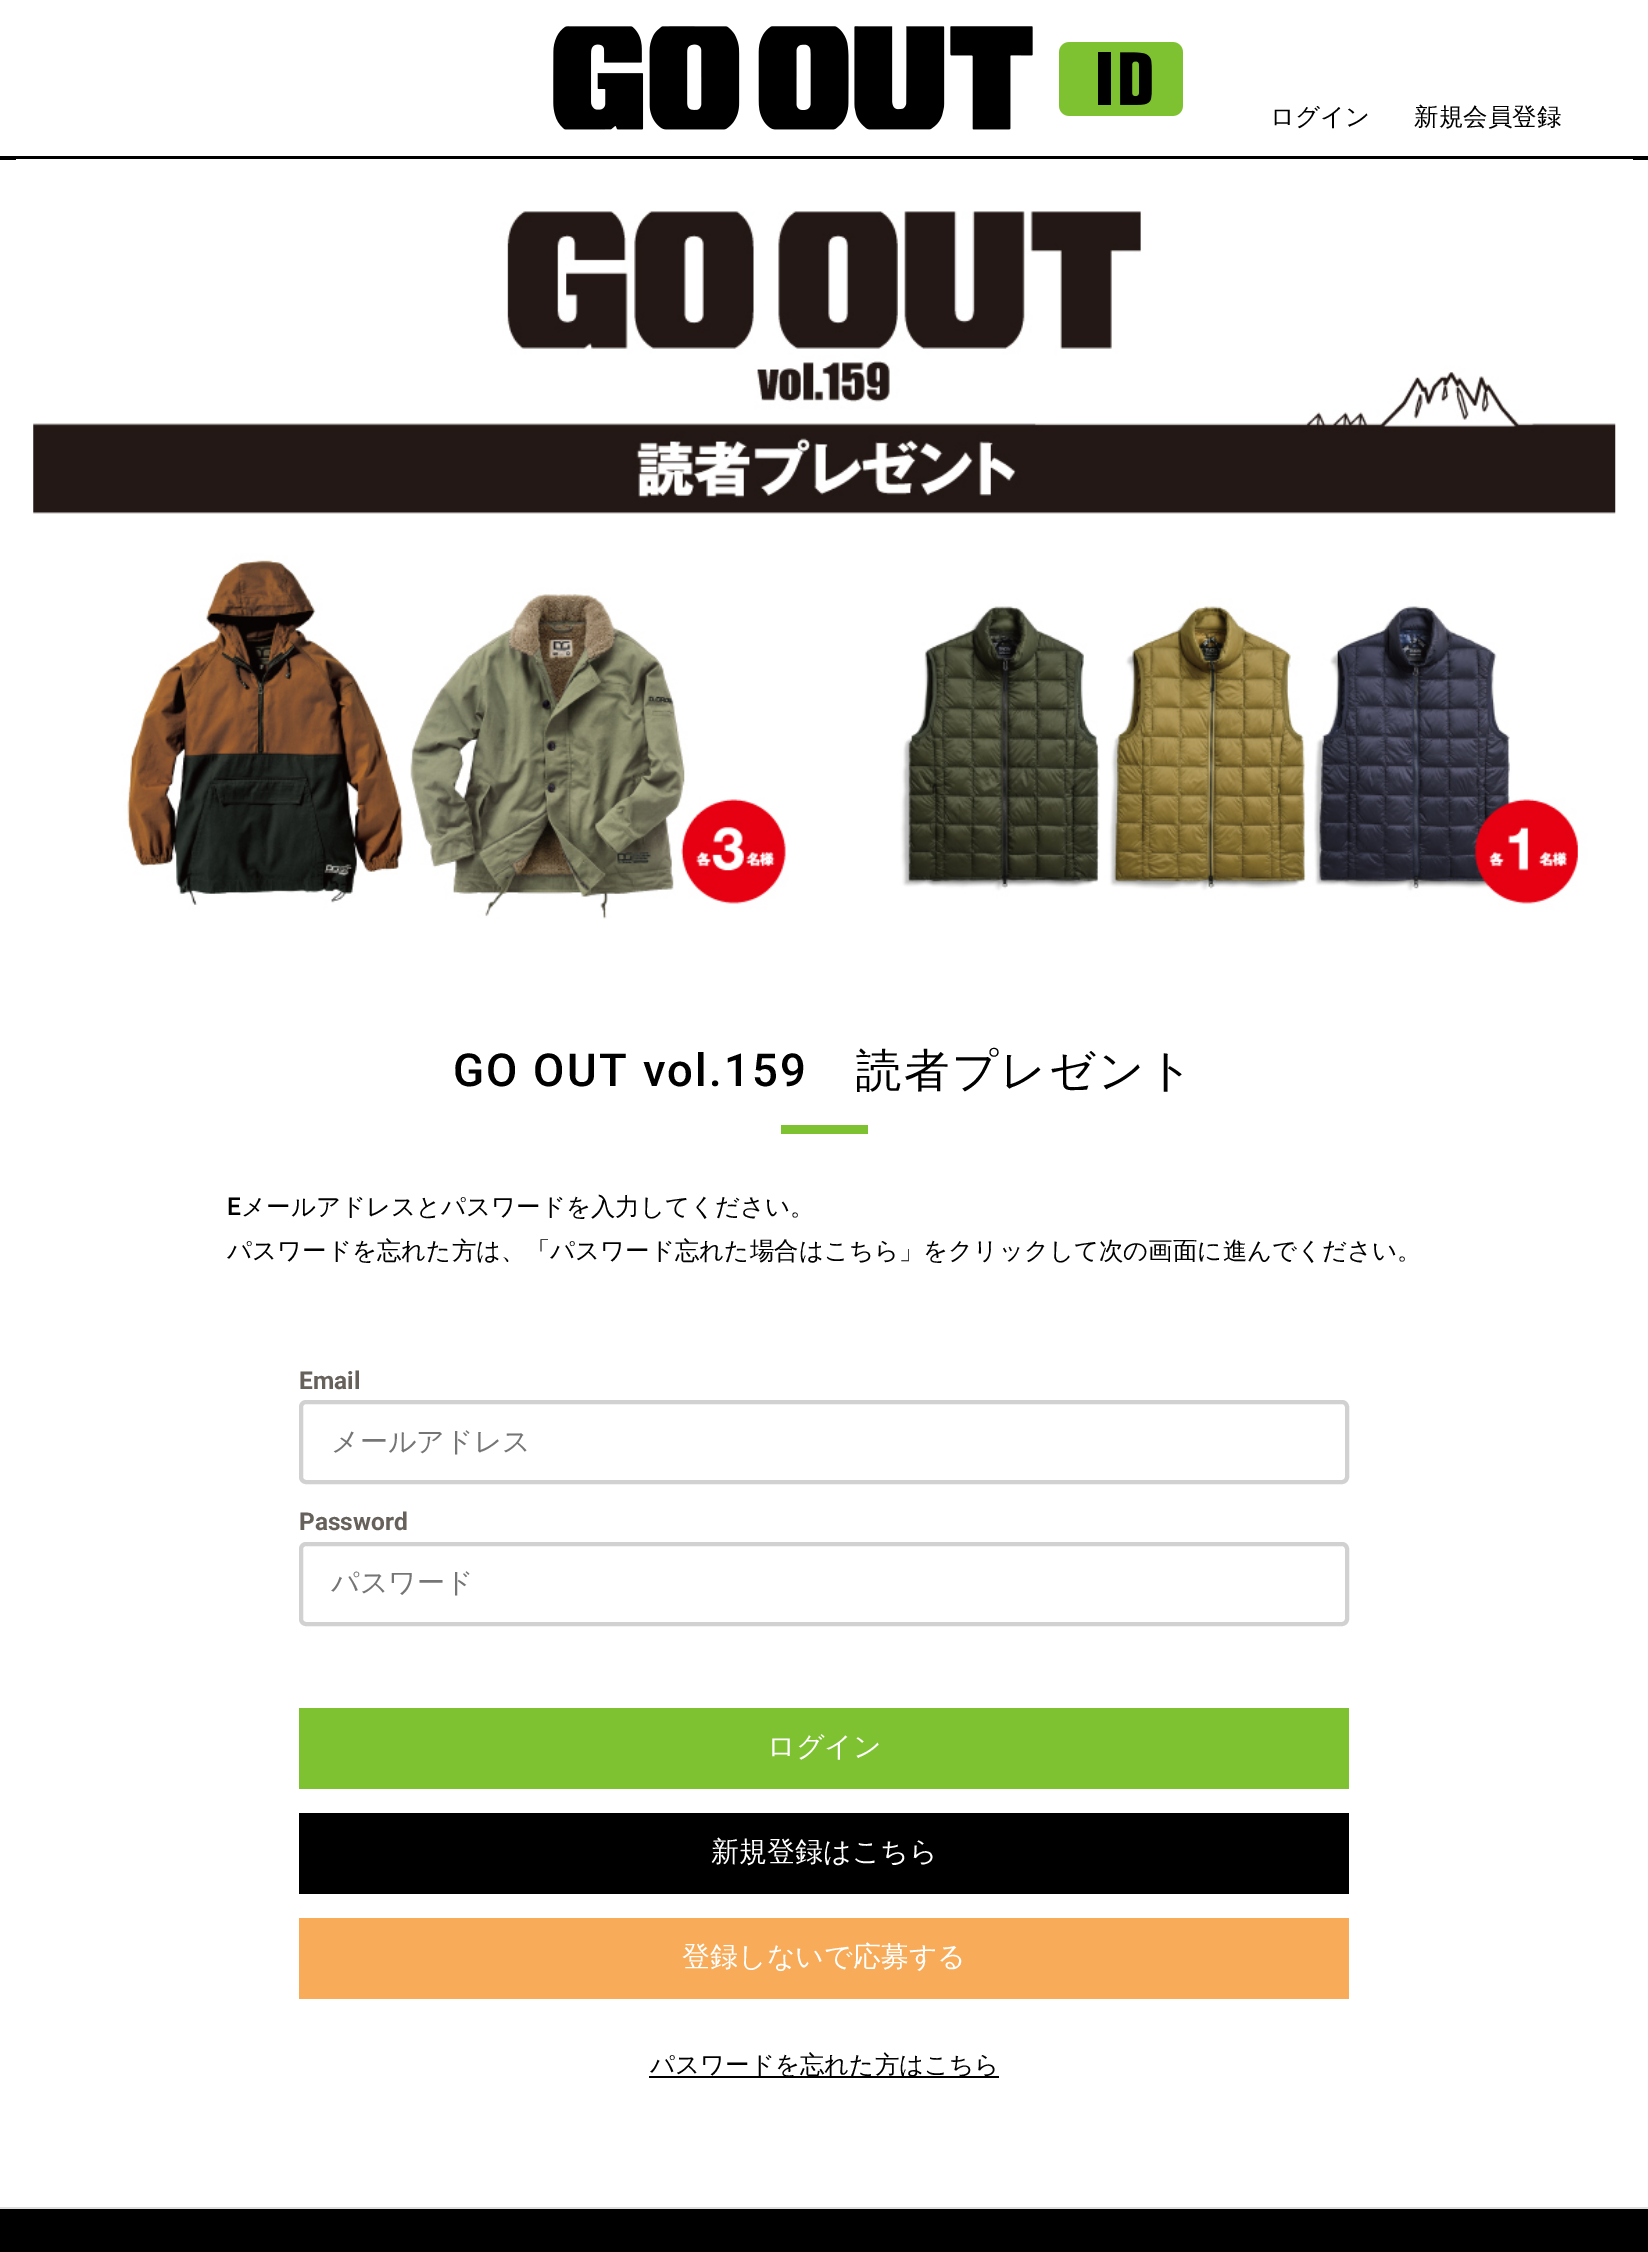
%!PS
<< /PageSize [1648 2252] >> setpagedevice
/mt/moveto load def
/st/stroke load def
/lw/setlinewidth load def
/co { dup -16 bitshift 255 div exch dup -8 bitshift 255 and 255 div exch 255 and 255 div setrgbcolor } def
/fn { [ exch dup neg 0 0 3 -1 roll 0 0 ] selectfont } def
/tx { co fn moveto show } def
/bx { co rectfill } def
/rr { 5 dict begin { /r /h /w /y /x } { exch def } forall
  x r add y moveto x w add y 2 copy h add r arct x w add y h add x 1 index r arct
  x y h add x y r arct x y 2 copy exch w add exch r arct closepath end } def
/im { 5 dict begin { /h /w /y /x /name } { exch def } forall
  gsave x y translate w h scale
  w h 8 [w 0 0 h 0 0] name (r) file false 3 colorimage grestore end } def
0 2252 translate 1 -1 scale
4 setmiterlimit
0 0 1648 2252 16#FFFFFF bx
0 156 1648 4 16#000000 bx
(media/1.raw) 553 26 630 104 im
16 159 1617 1 16#FFFFFF bx
(media/2.raw) 33 211 1583 708 im
781 1125 87 9 16#7FC231 bx
16#D1D1D1 co
4 lw
301 1402 1046 80 5 rr st
301 1544 1046 80 5 rr st
299 1708 1050 81 16#7FC231 bx
299 1813 1050 81 16#000000 bx
299 1918 1050 81 16#F8AC59 bx
649 2076 350 2 16#000000 bx
0 2209 1648 43 16#000000 bx
0 2207 1648 2 16#DDDDDD bx
(ログイン) 1270 125 /WenQuanYiZenHei-Medium 24.5 16#000000 tx
(新規会員登録) 1414 125 /WenQuanYiZenHei-Medium 24.5 16#000000 tx
/Roboto-Medium 45.5 fn
453 1086 mt 2.25 0 (GO OUT vol.159) ashow
/WenQuanYiZenHei-Medium 45.5 fn
856 1086 mt 2.25 0 (読者プレゼント) ashow
(E) 227 1215 /Roboto-Medium 24.5 16#000000 tx
(メールアドレスとパスワードを入力してください。) 241 1215 /WenQuanYiZenHei-Medium 24.5 16#000000 tx
(パスワードを忘れた方は、「パスワード忘れた場合はこちら」をクリックして次の画面に進んでください。) 227 1259 /WenQuanYiZenHei-Medium 24.5 16#000000 tx
(Email) 299 1389 /Roboto-Bold 24.5 16#66615B tx
(メールアドレス) 331 1451 /WenQuanYiZenHei-Medium 28 16#757575 tx
(Password) 299 1530 /Roboto-Bold 24.5 16#66615B tx
(パスワード) 331 1592 /WenQuanYiZenHei-Medium 28 16#757575 tx
(ログイン) 767 1756 /WenQuanYiZenHei-Medium 28 16#FFFFFF tx
(新規登録はこちら) 711 1861 /WenQuanYiZenHei-Medium 28 16#FFFFFF tx
(登録しないで応募する) 682 1966 /WenQuanYiZenHei-Medium 28 16#FFFFFF tx
(パスワードを忘れた方はこちら) 650 2073 /WenQuanYiZenHei-Medium 24.5 16#000000 tx
showpage
